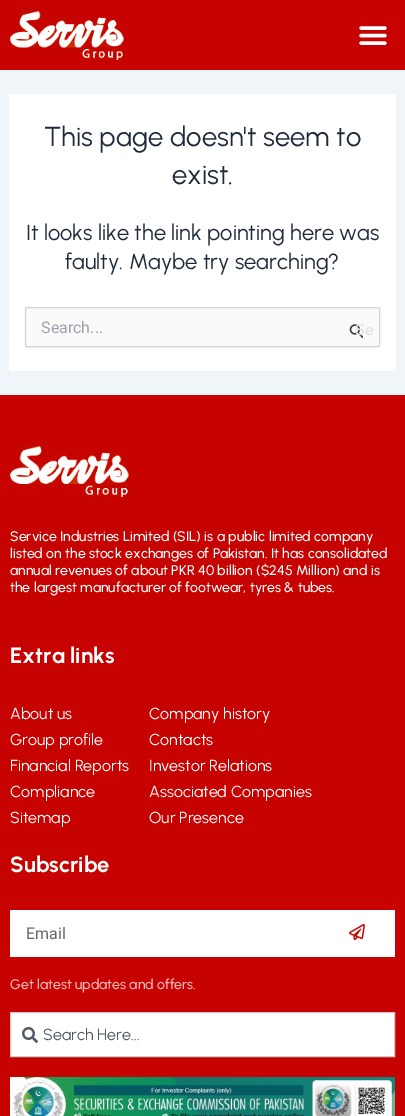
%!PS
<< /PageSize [405 1116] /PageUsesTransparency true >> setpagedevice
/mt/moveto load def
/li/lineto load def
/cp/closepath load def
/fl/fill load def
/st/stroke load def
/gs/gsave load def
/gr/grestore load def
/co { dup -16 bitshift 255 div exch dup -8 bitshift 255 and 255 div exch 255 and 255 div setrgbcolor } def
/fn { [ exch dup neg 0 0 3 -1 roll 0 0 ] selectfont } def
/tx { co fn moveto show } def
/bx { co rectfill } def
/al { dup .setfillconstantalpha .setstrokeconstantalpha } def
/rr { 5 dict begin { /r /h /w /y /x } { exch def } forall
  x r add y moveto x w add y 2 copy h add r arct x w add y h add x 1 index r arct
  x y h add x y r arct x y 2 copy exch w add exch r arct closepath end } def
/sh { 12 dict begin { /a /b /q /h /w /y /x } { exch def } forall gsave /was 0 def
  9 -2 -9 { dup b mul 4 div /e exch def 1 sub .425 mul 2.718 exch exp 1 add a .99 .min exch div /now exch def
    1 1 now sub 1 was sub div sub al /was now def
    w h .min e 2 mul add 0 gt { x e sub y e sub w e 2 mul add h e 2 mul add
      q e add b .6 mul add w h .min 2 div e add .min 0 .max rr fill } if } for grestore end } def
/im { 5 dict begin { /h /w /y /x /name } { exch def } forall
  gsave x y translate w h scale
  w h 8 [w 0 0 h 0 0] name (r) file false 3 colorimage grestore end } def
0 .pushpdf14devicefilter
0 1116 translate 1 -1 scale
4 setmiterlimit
0 0 405 1116 16#F0F5FA bx
0 0 405 70 16#C60301 bx
(media/1.raw) 10 10 114 50 im
(media/2.raw) 359 26 28 19 im
9 94 387 277 16#FFFFFF bx
16#000000 co
25 308 355 40 2 1 .05 sh
16#FAFAFA co
25.5 307.5 354 39 1.5 rr gs fl gr
16#D1D5DB co
st
(media/3.raw) 349 324 14 15 im
0 395 405 721 16#C60301 bx
(media/4.raw) 10 445 119 52 im
10 910 385 47 16#FFFFFF bx
(media/5.raw) 349 924 16 16 im
10.5 1012.5 mt 394.5 1012.5 li 394.5 1056.5 li 10.5 1056.5 li cp gs fl gr
16#CDCDCD co
st
(media/6.raw) 22 1027 16 16 im
(media/7.raw) 10 1077 385 39 im
(This page doesn't seem to) 44 146 /Urbanist-Regular 27.4 16#1E293B tx
(exist.) 172 184 /Urbanist-Regular 27.4 16#1E293B tx
(It looks like the link pointing here was) 26 240 /Urbanist-Regular 21.9 16#1E293B tx
(faulty. Maybe try searching?) 65 269 /Urbanist-Regular 21.9 16#1E293B tx
(Search...) 41 333 /Roboto-Regular 16 16#9CA3AF tx
(Se) 355 335 /Urbanist-SemiBold 16 16#E2E3E3 tx
(Service Industries Limited \(SIL\) is a public limited company) 10 541 /Urbanist-Medium 14 16#FFFFFF tx
(listed on the stock exchanges of Pakistan. It has consolidated) 10 558 /Urbanist-Medium 14 16#FFFFFF tx
(annual revenues of about PKR 40 billion \($245 Million\) and is) 10 575 /Urbanist-Medium 14 16#FFFFFF tx
(the largest manufacturer of footwear, tyres & tubes.) 10 592 /Urbanist-Medium 14 16#FFFFFF tx
(Extra links) 10 663 /Urbanist-Bold 22 16#FFFFFF tx
(About us) 10 719 /Urbanist-Regular 16 16#FFFFFF tx
(Group profile) 10 745 /Urbanist-Regular 16 16#FFFFFF tx
(Financial Reports) 10 771 /Urbanist-Regular 16 16#FFFFFF tx
(Compliance) 10 797 /Urbanist-Regular 16 16#FFFFFF tx
(Sitemap) 10 823 /Urbanist-Regular 16 16#FFFFFF tx
(Company history) 149 719 /Urbanist-Regular 16 16#FFFFFF tx
(Contacts) 149 745 /Urbanist-Regular 16 16#FFFFFF tx
(Investor Relations) 149 771 /Urbanist-Regular 16 16#FFFFFF tx
(Associated Companies) 149 797 /Urbanist-Regular 16 16#FFFFFF tx
(Our Presence) 149 823 /Urbanist-Regular 16 16#FFFFFF tx
(Subscribe) 10 872 /Urbanist-Bold 22 16#FFFFFF tx
(Email) 26 939 /Roboto-Regular 16 16#666666 tx
(Get latest updates and offers.) 10 989 /Urbanist-Medium 14 16#F3BEBD tx
(Search Here...) 43 1040 /Urbanist-Regular 16 16#515962 tx
.poppdf14devicefilter showpage
